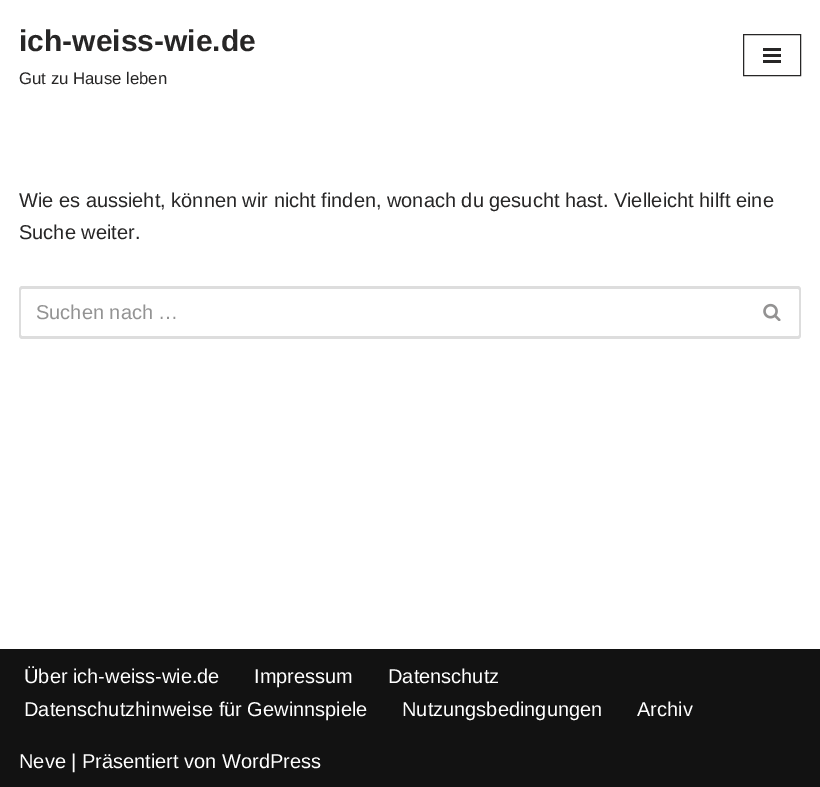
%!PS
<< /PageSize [820 787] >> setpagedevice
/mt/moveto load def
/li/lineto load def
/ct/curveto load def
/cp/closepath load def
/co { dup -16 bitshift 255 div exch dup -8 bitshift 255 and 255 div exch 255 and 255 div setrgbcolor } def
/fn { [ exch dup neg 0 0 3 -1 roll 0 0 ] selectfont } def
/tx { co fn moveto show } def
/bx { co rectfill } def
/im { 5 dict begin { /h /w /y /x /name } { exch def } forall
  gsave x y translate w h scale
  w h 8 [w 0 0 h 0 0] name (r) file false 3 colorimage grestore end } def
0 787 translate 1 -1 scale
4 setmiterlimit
0 0 820 787 16#FFFFFF bx
16#272626 co
743.5 34.5 57 41 rectstroke
763 48 18 3 16#272626 bx
763 54 18 3 16#272626 bx
763 60 18 3 16#272626 bx
16#DDDDDD co
22 286 mt 745 286 li 745 339 li 22 339 li 20 339 19 337 19 335 ct 19 290 li 19 288 20 286 22 286 ct cp 22 289 mt 745 289 li 745 336 li 22 336 li 22 336 21 336 21 335 ct 21 290 li 21 289 22 289 22 289 ct cp eofill
745 286 mt 798 286 li 800 286 801 288 801 290 ct 801 335 li 801 337 800 339 798 339 ct 745 339 li cp 745 289 mt 798 289 li 798 289 799 289 799 290 ct 799 335 li 799 336 798 336 798 336 ct 745 336 li cp eofill
(media/1.raw) 763 303 18 18 im
0 649 820 138 16#121212 bx
(ich-weiss-wie.de) 19 51 /LiberationSans-Bold 30 16#272626 tx
(Gut zu Hause leben) 19 84 /LiberationSans-Regular 16.75 16#272626 tx
(Wie es aussieht, können wir nicht finden, wonach du gesucht hast. Vielleicht hilft eine) 19 207 /LiberationSans-Regular 20 16#272626 tx
(Suche weiter.) 19 239 /LiberationSans-Regular 20 16#272626 tx
(Suchen nach …) 36 319 /LiberationSans-Regular 20 16#939393 tx
(Über ich-weiss-wie.de) 24 683 /LiberationSans-Regular 20 16#FFFFFF tx
(Impressum) 254 683 /LiberationSans-Regular 20 16#FFFFFF tx
(Datenschutz) 388 683 /LiberationSans-Regular 20 16#FFFFFF tx
(Datenschutzhinweise für Gewinnspiele) 24 716 /LiberationSans-Regular 20 16#FFFFFF tx
(Nutzungsbedingungen) 402 716 /LiberationSans-Regular 20 16#FFFFFF tx
(Archiv) 637 716 /LiberationSans-Regular 20 16#FFFFFF tx
(Neve | Präsentiert von WordPress) 19 768 /LiberationSans-Regular 20 16#FFFFFF tx
showpage
